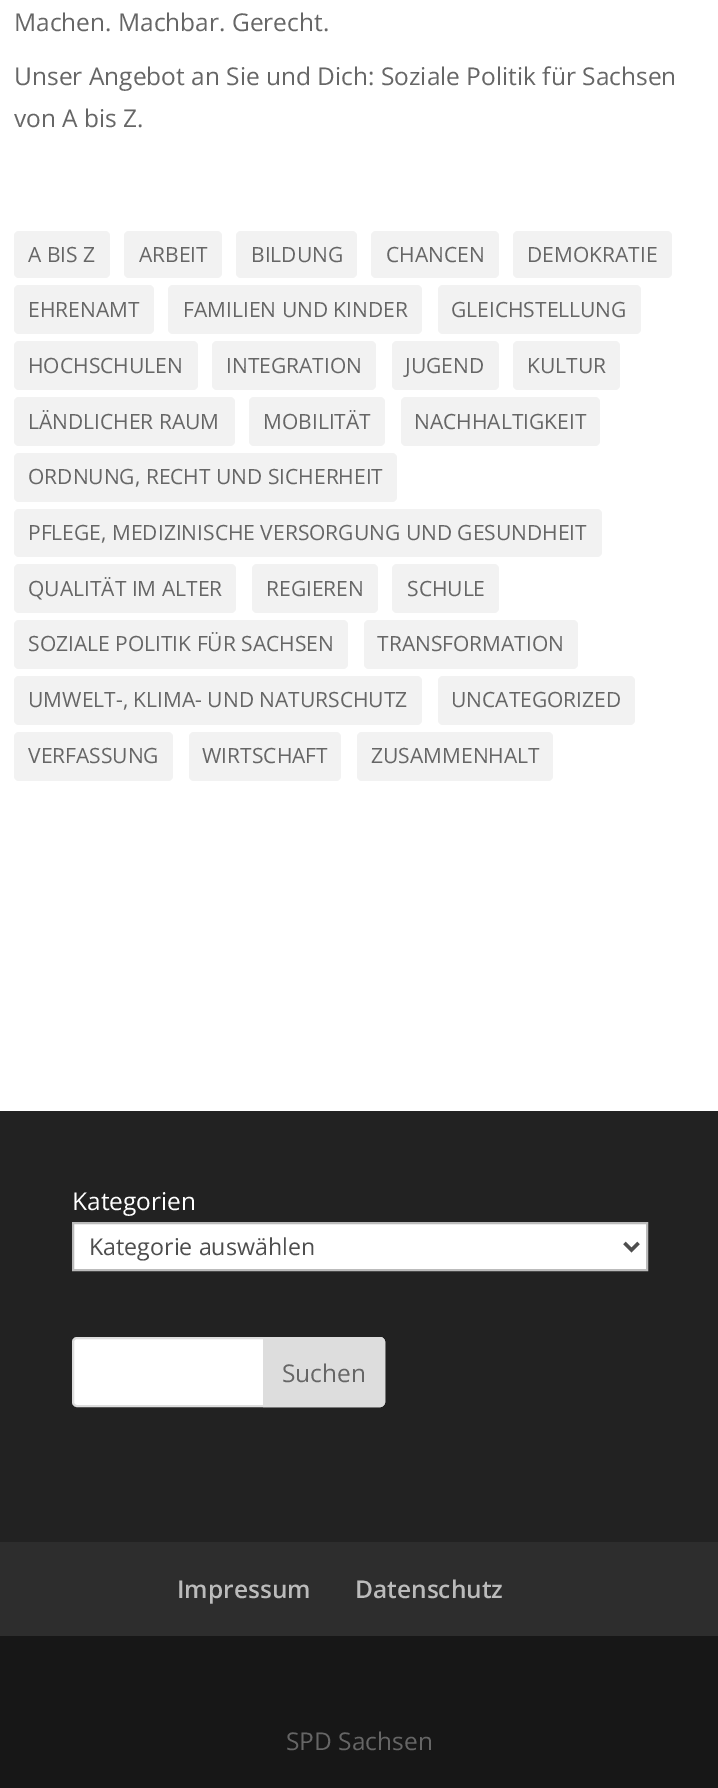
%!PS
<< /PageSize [718 1788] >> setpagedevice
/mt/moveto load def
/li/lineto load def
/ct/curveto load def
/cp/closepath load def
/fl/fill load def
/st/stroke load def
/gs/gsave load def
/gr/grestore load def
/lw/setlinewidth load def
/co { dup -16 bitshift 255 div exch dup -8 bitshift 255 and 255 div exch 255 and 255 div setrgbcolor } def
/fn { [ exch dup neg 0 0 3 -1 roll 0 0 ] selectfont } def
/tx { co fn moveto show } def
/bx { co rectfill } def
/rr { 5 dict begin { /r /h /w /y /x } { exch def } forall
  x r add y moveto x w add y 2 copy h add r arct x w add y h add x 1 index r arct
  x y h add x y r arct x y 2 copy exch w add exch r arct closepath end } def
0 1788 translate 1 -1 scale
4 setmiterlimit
0 0 718 1788 16#FFFFFF bx
16#F2F2F2 co
14 231 96 47 5 rr fl
124 231 98 47 5 rr fl
236 231 121 47 5 rr fl
371 231 128 47 5 rr fl
513 231 159 47 5 rr fl
14 285 140 49 5 rr fl
168 285 254 49 5 rr fl
438 285 203 49 5 rr fl
14 341 184 49 5 rr fl
212 341 164 49 5 rr fl
392 341 107 49 5 rr fl
513 341 107 49 5 rr fl
14 397 221 49 5 rr fl
249 397 136 49 5 rr fl
401 397 199 49 5 rr fl
14 453 383 49 5 rr fl
14 509 588 48 5 rr fl
14 564 222 49 5 rr fl
252 564 126 49 5 rr fl
392 564 107 49 5 rr fl
14 620 334 49 5 rr fl
364 620 214 49 5 rr fl
14 676 408 49 5 rr fl
438 676 197 49 5 rr fl
14 732 159 49 5 rr fl
189 732 152 49 5 rr fl
357 732 196 49 5 rr fl
0 1111 718 431 16#222222 bx
16#FFFFFF co
73 1223 mt 647 1223 li 647 1270 li 73 1270 li cp gs fl gr
16#BBBBBB co
2 lw
st
16#4E4E4E co
3.5 lw
624.5 1243 mt 631.5 1250 li 638.5 1243 li st
16#FFFFFF co
73 1338 311 68 4 rr gs fl gr
16#DDDDDD co
2 lw
st
264 1338 mt 380 1338 li 382 1338 384 1340 384 1342 ct 384 1402 li 384 1404 382 1406 380 1406 ct 264 1406 li cp gs fl gr
st
0 1542 718 94 16#2D2D2D bx
0 1636 718 152 16#171717 bx
(Machen. Machbar. Gerecht.) 14 31 /OpenSans-Regular 24.5 16#666666 tx
(Unser Angebot an Sie und Dich: Soziale Politik für Sachsen) 14 85 /OpenSans-Regular 24.5 16#666666 tx
(von A bis Z.) 14 127 /OpenSans-Regular 24.5 16#666666 tx
(A BIS Z) 28 262 /OpenSans-Regular 21 16#666666 tx
(ARBEIT) 139 262 /OpenSans-Regular 21 16#666666 tx
(BILDUNG) 251 262 /OpenSans-Regular 21 16#666666 tx
(CHANCEN) 386 262 /OpenSans-Regular 21 16#666666 tx
(DEMOKRATIE) 527 262 /OpenSans-Regular 21 16#666666 tx
(EHRENAMT) 28 317 /OpenSans-Regular 21 16#666666 tx
(FAMILIEN UND KINDER) 183 317 /OpenSans-Regular 21 16#666666 tx
(GLEICHSTELLUNG) 451 317 /OpenSans-Regular 21 16#666666 tx
(HOCHSCHULEN) 28 373 /OpenSans-Regular 21 16#666666 tx
(INTEGRATION) 226 373 /OpenSans-Regular 21 16#666666 tx
(JUGEND) 405 373 /OpenSans-Regular 21 16#666666 tx
(KULTUR) 527 373 /OpenSans-Regular 21 16#666666 tx
(LÄNDLICHER RAUM) 28 429 /OpenSans-Regular 21 16#666666 tx
(MOBILITÄT) 263 429 /OpenSans-Regular 21 16#666666 tx
(NACHHALTIGKEIT) 414 429 /OpenSans-Regular 21 16#666666 tx
(ORDNUNG, RECHT UND SICHERHEIT) 28 484 /OpenSans-Regular 21 16#666666 tx
(PFLEGE, MEDIZINISCHE VERSORGUNG UND GESUNDHEIT) 28 540 /OpenSans-Regular 21 16#666666 tx
(QUALITÄT IM ALTER) 28 596 /OpenSans-Regular 21 16#666666 tx
(REGIEREN) 266 596 /OpenSans-Regular 21 16#666666 tx
(SCHULE) 407 596 /OpenSans-Regular 21 16#666666 tx
(SOZIALE POLITIK FÜR SACHSEN) 28 651 /OpenSans-Regular 21 16#666666 tx
(TRANSFORMATION) 377 651 /OpenSans-Regular 21 16#666666 tx
(UMWELT-, KLIMA- UND NATURSCHUTZ) 28 707 /OpenSans-Regular 21 16#666666 tx
(UNCATEGORIZED) 451 707 /OpenSans-Regular 21 16#666666 tx
(VERFASSUNG) 28 763 /OpenSans-Regular 21 16#666666 tx
(WIRTSCHAFT) 202 763 /OpenSans-Regular 21 16#666666 tx
(ZUSAMMENHALT) 371 763 /OpenSans-Regular 21 16#666666 tx
(Kategorien) 72 1210 /OpenSans-Regular 24.5 16#FFFFFF tx
(Kategorie auswählen) 89 1255 /OpenSans-Regular 23.25 16#4E4E4E tx
(Suchen) 282 1382 /OpenSans-Regular 24.5 16#666666 tx
(Impressum) 177 1598 /OpenSans-SemiBold 24.5 16#BBBBBB tx
(Datenschutz) 355 1598 /OpenSans-SemiBold 24.5 16#BBBBBB tx
(SPD Sachsen) 286 1750 /OpenSans-Regular 24.5 16#666666 tx
showpage
